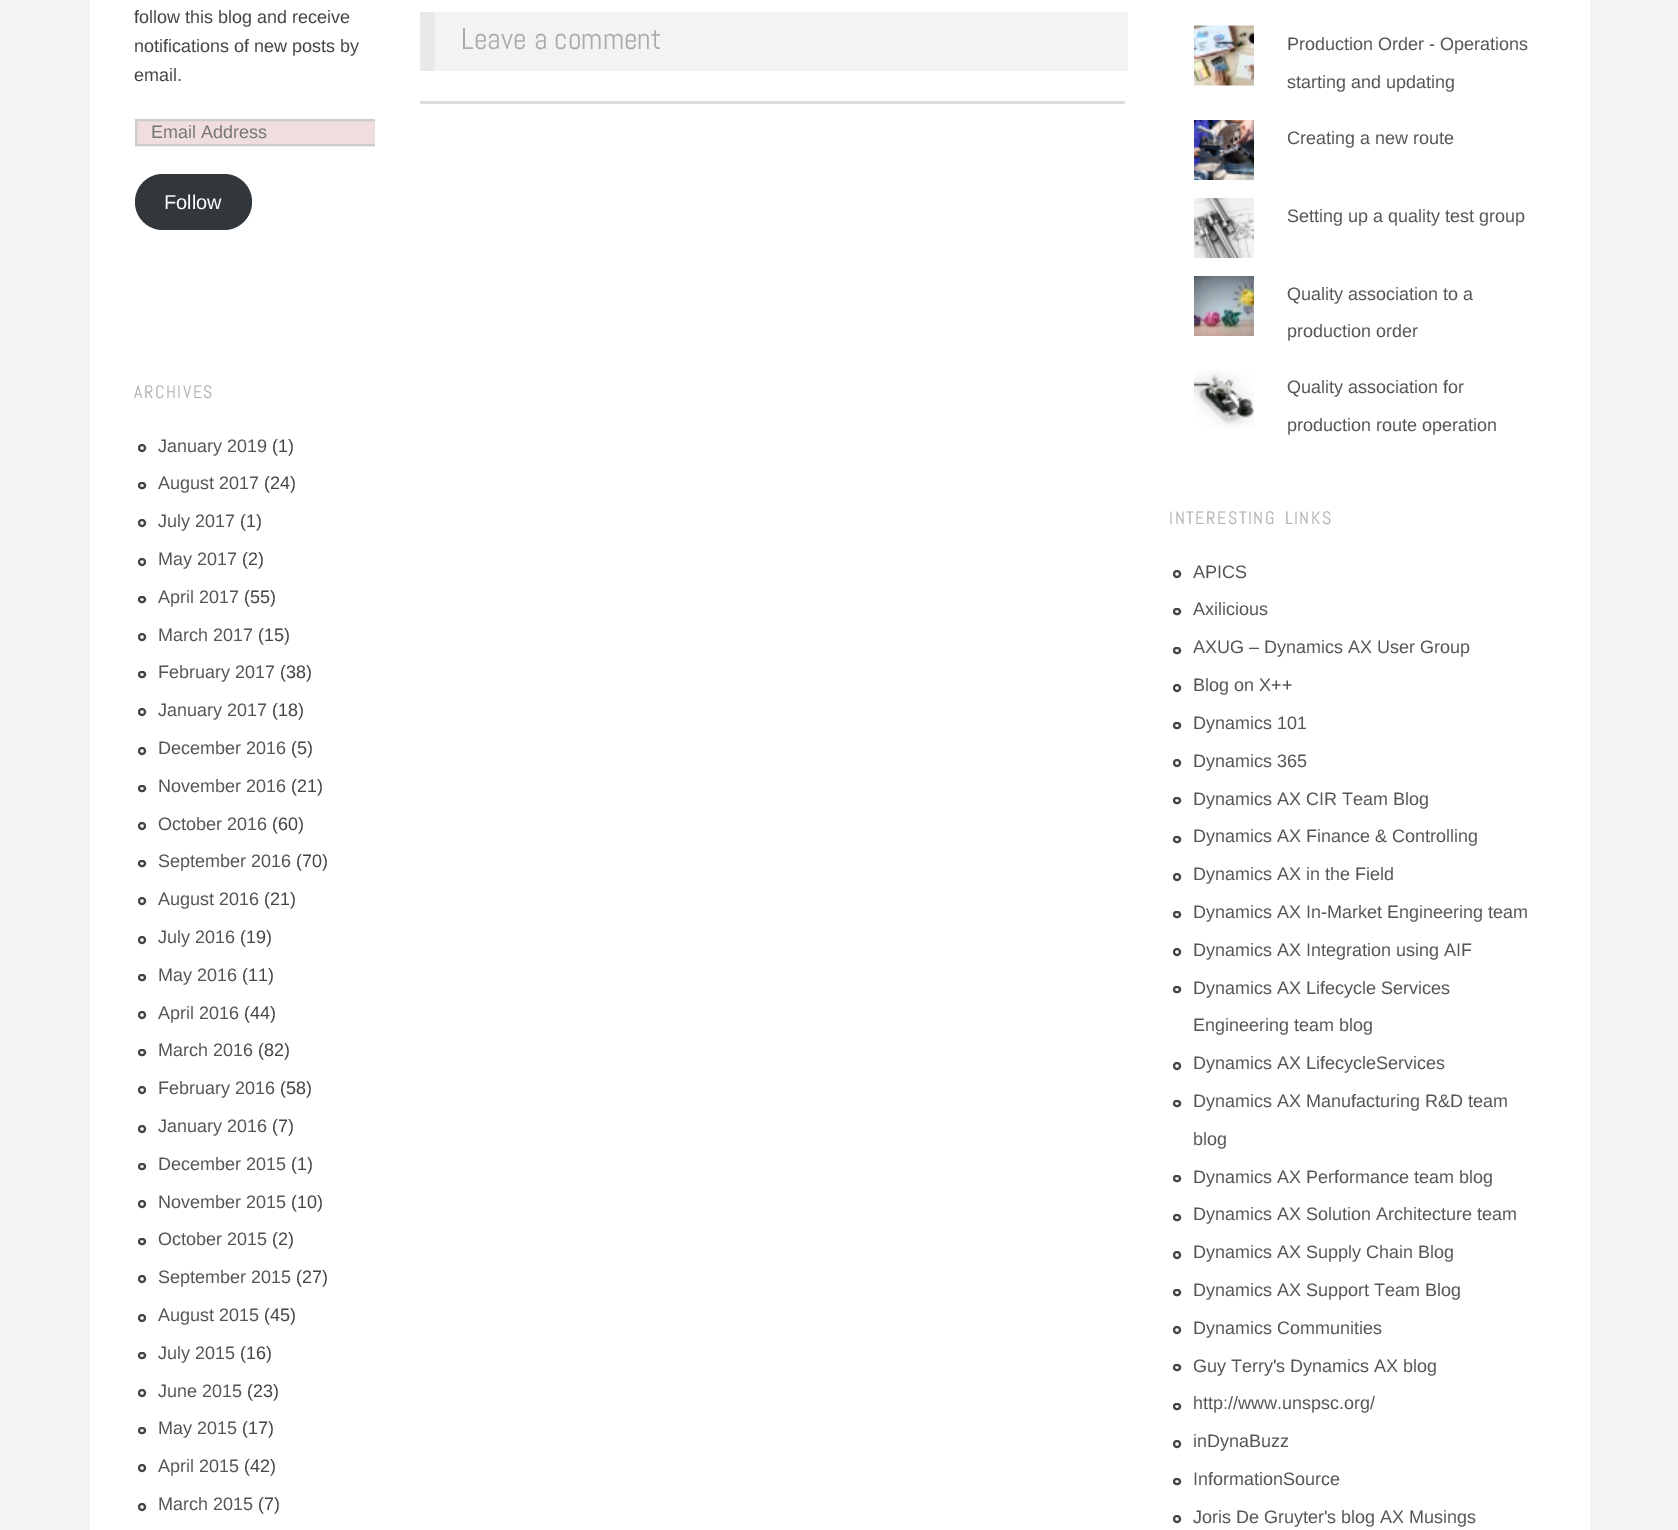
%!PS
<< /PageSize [1678 1530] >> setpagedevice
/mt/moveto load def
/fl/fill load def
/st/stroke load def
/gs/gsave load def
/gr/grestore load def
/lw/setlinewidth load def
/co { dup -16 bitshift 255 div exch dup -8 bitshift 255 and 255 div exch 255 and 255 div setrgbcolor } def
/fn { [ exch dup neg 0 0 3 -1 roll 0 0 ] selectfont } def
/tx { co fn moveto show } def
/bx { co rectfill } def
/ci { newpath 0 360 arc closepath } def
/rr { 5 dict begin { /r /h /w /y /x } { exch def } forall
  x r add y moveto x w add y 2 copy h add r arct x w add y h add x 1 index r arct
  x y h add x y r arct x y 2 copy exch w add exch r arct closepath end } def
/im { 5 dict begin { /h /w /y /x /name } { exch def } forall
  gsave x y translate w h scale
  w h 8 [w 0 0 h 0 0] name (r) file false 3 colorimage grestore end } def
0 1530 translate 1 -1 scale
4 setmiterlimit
0 0 1678 1530 16#F4F4F4 bx
90 0 1500 1530 16#FFFFFF bx
137 121 238 23 16#F0DDDD bx
gs
135 0 240 230 rectclip
16#CCCCCC co
2 lw
136 120 259 25 rectstroke
gr
16#32373C co
135 174 117 56 28 rr fl
16#444444 co
2 lw
142 448 3 ci st
139 483 6 5 2.5 rr st
142 523 3 ci st
142 562 3 ci st
139 597 6 5 2.5 rr st
142 637 3 ci st
139 672 6 5 2.5 rr st
142 712 3 ci st
142 751 3 ci st
139 786 6 5 2.5 rr st
142 826 3 ci st
139 861 6 5 2.5 rr st
142 901 3 ci st
142 940 3 ci st
139 975 6 5 2.5 rr st
142 1015 3 ci st
139 1050 6 5 2.5 rr st
142 1090 3 ci st
142 1129 3 ci st
139 1164 6 5 2.5 rr st
142 1204 3 ci st
139 1239 6 5 2.5 rr st
142 1279 3 ci st
142 1318 3 ci st
139 1353 6 5 2.5 rr st
142 1393 3 ci st
139 1428 6 5 2.5 rr st
142 1468 3 ci st
142 1507 3 ci st
435 12 693 59 16#F3F3F3 bx
420 12 15 59 16#E9E9E9 bx
420 101 705 3 16#DCDCDE bx
(media/1.raw) 1194 25 60 61 im
(media/2.raw) 1194 120 60 60 im
(media/3.raw) 1194 198 60 60 im
(media/4.raw) 1194 276 60 60 im
(media/5.raw) 1194 370 60 58 im
16#444444 co
1177 574 3 ci st
1174 609 6 5 2.5 rr st
1174 648 6 5 2.5 rr st
1177 688 3 ci st
1174 723 6 5 2.5 rr st
1177 763 3 ci st
1174 798 6 5 2.5 rr st
1174 837 6 5 2.5 rr st
1177 877 3 ci st
1174 912 6 5 2.5 rr st
1177 952 3 ci st
1174 987 6 5 2.5 rr st
1177 1066 3 ci st
1174 1101 6 5 2.5 rr st
1174 1176 6 5 2.5 rr st
1174 1215 6 5 2.5 rr st
1177 1255 3 ci st
1174 1290 6 5 2.5 rr st
1177 1330 3 ci st
1174 1365 6 5 2.5 rr st
1174 1404 6 5 2.5 rr st
1177 1444 3 ci st
1174 1479 6 5 2.5 rr st
1177 1519 3 ci st
(follow this blog and receive) 134 23 /LiberationSans-Regular 18 16#444444 tx
(notifications of new posts by) 134 52 /LiberationSans-Regular 18 16#444444 tx
(email.) 134 81 /LiberationSans-Regular 18 16#444444 tx
(Email Address) 151 138 /LiberationSans-Regular 18 16#757575 tx
(Follow) 164 209 /LiberationSans-Regular 20 16#FFFFFF tx
/Abel-Regular 18 fn
16#AAAAAA co
134 398 mt 1.5 0 (ARCHIVES) ashow
(January 2019) 158 452 /LiberationSans-Regular 18 16#555555 tx
(\(1\)) 272 452 /LiberationSans-Regular 18 16#444444 tx
(August 2017) 158 489 /LiberationSans-Regular 18 16#555555 tx
(\(24\)) 264 489 /LiberationSans-Regular 18 16#444444 tx
(July 2017) 158 527 /LiberationSans-Regular 18 16#555555 tx
(\(1\)) 240 527 /LiberationSans-Regular 18 16#444444 tx
(May 2017) 158 565 /LiberationSans-Regular 18 16#555555 tx
(\(2\)) 242 565 /LiberationSans-Regular 18 16#444444 tx
(April 2017) 158 603 /LiberationSans-Regular 18 16#555555 tx
(\(55\)) 244 603 /LiberationSans-Regular 18 16#444444 tx
(March 2017) 158 641 /LiberationSans-Regular 18 16#555555 tx
(\(15\)) 258 641 /LiberationSans-Regular 18 16#444444 tx
(February 2017) 158 678 /LiberationSans-Regular 18 16#555555 tx
(\(38\)) 280 678 /LiberationSans-Regular 18 16#444444 tx
(January 2017) 158 716 /LiberationSans-Regular 18 16#555555 tx
(\(18\)) 272 716 /LiberationSans-Regular 18 16#444444 tx
(December 2016) 158 754 /LiberationSans-Regular 18 16#555555 tx
(\(5\)) 291 754 /LiberationSans-Regular 18 16#444444 tx
(November 2016) 158 792 /LiberationSans-Regular 18 16#555555 tx
(\(21\)) 291 792 /LiberationSans-Regular 18 16#444444 tx
(October 2016) 158 830 /LiberationSans-Regular 18 16#555555 tx
(\(60\)) 272 830 /LiberationSans-Regular 18 16#444444 tx
(September 2016) 158 867 /LiberationSans-Regular 18 16#555555 tx
(\(70\)) 296 867 /LiberationSans-Regular 18 16#444444 tx
(August 2016) 158 905 /LiberationSans-Regular 18 16#555555 tx
(\(21\)) 264 905 /LiberationSans-Regular 18 16#444444 tx
(July 2016) 158 943 /LiberationSans-Regular 18 16#555555 tx
(\(19\)) 240 943 /LiberationSans-Regular 18 16#444444 tx
(May 2016) 158 981 /LiberationSans-Regular 18 16#555555 tx
(\(11\)) 242 981 /LiberationSans-Regular 18 16#444444 tx
(April 2016) 158 1019 /LiberationSans-Regular 18 16#555555 tx
(\(44\)) 244 1019 /LiberationSans-Regular 18 16#444444 tx
(March 2016) 158 1056 /LiberationSans-Regular 18 16#555555 tx
(\(82\)) 258 1056 /LiberationSans-Regular 18 16#444444 tx
(February 2016) 158 1094 /LiberationSans-Regular 18 16#555555 tx
(\(58\)) 280 1094 /LiberationSans-Regular 18 16#444444 tx
(January 2016) 158 1132 /LiberationSans-Regular 18 16#555555 tx
(\(7\)) 272 1132 /LiberationSans-Regular 18 16#444444 tx
(December 2015) 158 1170 /LiberationSans-Regular 18 16#555555 tx
(\(1\)) 291 1170 /LiberationSans-Regular 18 16#444444 tx
(November 2015) 158 1208 /LiberationSans-Regular 18 16#555555 tx
(\(10\)) 291 1208 /LiberationSans-Regular 18 16#444444 tx
(October 2015) 158 1245 /LiberationSans-Regular 18 16#555555 tx
(\(2\)) 272 1245 /LiberationSans-Regular 18 16#444444 tx
(September 2015) 158 1283 /LiberationSans-Regular 18 16#555555 tx
(\(27\)) 296 1283 /LiberationSans-Regular 18 16#444444 tx
(August 2015) 158 1321 /LiberationSans-Regular 18 16#555555 tx
(\(45\)) 264 1321 /LiberationSans-Regular 18 16#444444 tx
(July 2015) 158 1359 /LiberationSans-Regular 18 16#555555 tx
(\(16\)) 240 1359 /LiberationSans-Regular 18 16#444444 tx
(June 2015) 158 1397 /LiberationSans-Regular 18 16#555555 tx
(\(23\)) 247 1397 /LiberationSans-Regular 18 16#444444 tx
(May 2015) 158 1434 /LiberationSans-Regular 18 16#555555 tx
(\(17\)) 242 1434 /LiberationSans-Regular 18 16#444444 tx
(April 2015) 158 1472 /LiberationSans-Regular 18 16#555555 tx
(\(42\)) 244 1472 /LiberationSans-Regular 18 16#444444 tx
(March 2015) 158 1510 /LiberationSans-Regular 18 16#555555 tx
(\(7\)) 258 1510 /LiberationSans-Regular 18 16#444444 tx
(Leave a comment) 461 49 /Abel-Regular 30 16#AAAAAA tx
(Production Order - Operations) 1287 50 /LiberationSans-Regular 18 16#555555 tx
(starting and updating) 1287 88 /LiberationSans-Regular 18 16#555555 tx
(Creating a new route) 1287 144 /LiberationSans-Regular 18 16#555555 tx
(Setting up a quality test group) 1287 222 /LiberationSans-Regular 18 16#555555 tx
(Quality association to a) 1287 300 /LiberationSans-Regular 18 16#555555 tx
(production order) 1287 337 /LiberationSans-Regular 18 16#555555 tx
(Quality association for) 1287 393 /LiberationSans-Regular 18 16#555555 tx
(production route operation) 1287 431 /LiberationSans-Regular 18 16#555555 tx
/Abel-Regular 18 fn
16#AAAAAA co
1169 524 mt 3 0 32 1.5 0 (INTERESTING LINKS) awidthshow
(APICS) 1193 578 /LiberationSans-Regular 18 16#555555 tx
(Axilicious) 1193 615 /LiberationSans-Regular 18 16#555555 tx
(AXUG – Dynamics AX User Group) 1193 653 /LiberationSans-Regular 18 16#555555 tx
(Blog on X++) 1193 691 /LiberationSans-Regular 18 16#555555 tx
(Dynamics 101) 1193 729 /LiberationSans-Regular 18 16#555555 tx
(Dynamics 365) 1193 767 /LiberationSans-Regular 18 16#555555 tx
(Dynamics AX CIR Team Blog) 1193 805 /LiberationSans-Regular 18 16#555555 tx
(Dynamics AX Finance & Controlling) 1193 842 /LiberationSans-Regular 18 16#555555 tx
(Dynamics AX in the Field) 1193 880 /LiberationSans-Regular 18 16#555555 tx
(Dynamics AX In-Market Engineering team) 1193 918 /LiberationSans-Regular 18 16#555555 tx
(Dynamics AX Integration using AIF) 1193 956 /LiberationSans-Regular 18 16#555555 tx
(Dynamics AX Lifecycle Services) 1193 994 /LiberationSans-Regular 18 16#555555 tx
(Engineering team blog) 1193 1031 /LiberationSans-Regular 18 16#555555 tx
(Dynamics AX LifecycleServices) 1193 1069 /LiberationSans-Regular 18 16#555555 tx
(Dynamics AX Manufacturing R&D team) 1193 1107 /LiberationSans-Regular 18 16#555555 tx
(blog) 1193 1145 /LiberationSans-Regular 18 16#555555 tx
(Dynamics AX Performance team blog) 1193 1183 /LiberationSans-Regular 18 16#555555 tx
(Dynamics AX Solution Architecture team) 1193 1220 /LiberationSans-Regular 18 16#555555 tx
(Dynamics AX Supply Chain Blog) 1193 1258 /LiberationSans-Regular 18 16#555555 tx
(Dynamics AX Support Team Blog) 1193 1296 /LiberationSans-Regular 18 16#555555 tx
(Dynamics Communities) 1193 1334 /LiberationSans-Regular 18 16#555555 tx
(Guy Terry's Dynamics AX blog) 1193 1372 /LiberationSans-Regular 18 16#555555 tx
(http://www.unspsc.org/) 1193 1409 /LiberationSans-Regular 18 16#555555 tx
(inDynaBuzz) 1193 1447 /LiberationSans-Regular 18 16#555555 tx
(InformationSource) 1193 1485 /LiberationSans-Regular 18 16#555555 tx
(Joris De Gruyter's blog AX Musings) 1193 1523 /LiberationSans-Regular 18 16#555555 tx
showpage
